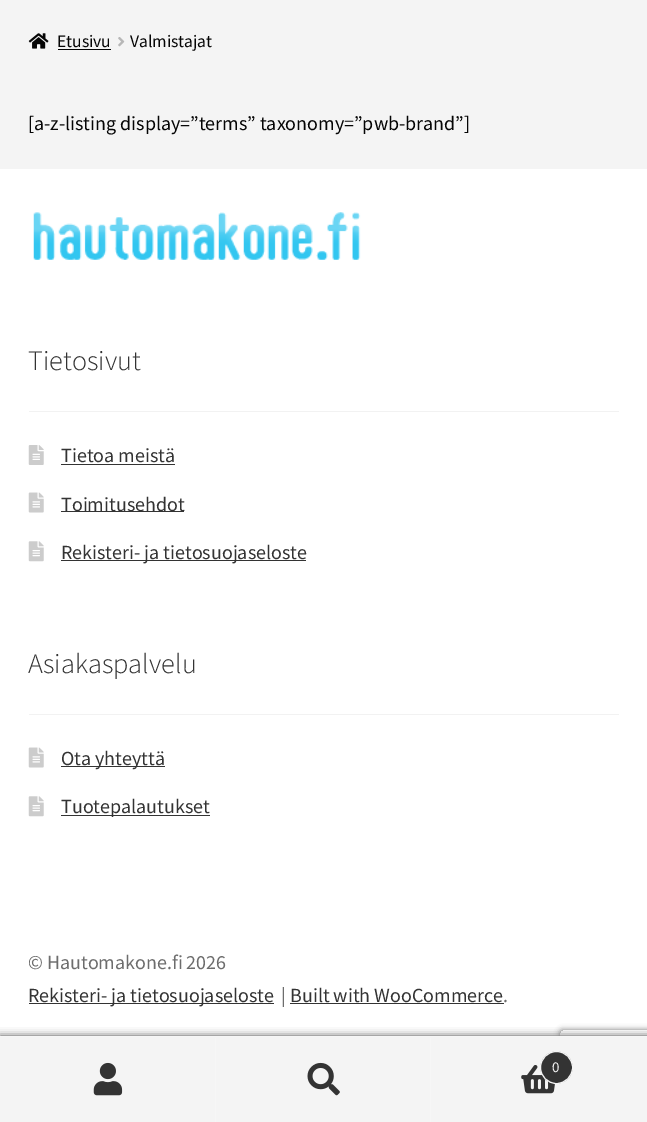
%!PS
<< /PageSize [647 1122] /PageUsesTransparency true >> setpagedevice
/mt/moveto load def
/li/lineto load def
/ct/curveto load def
/cp/closepath load def
/fl/fill load def
/st/stroke load def
/gs/gsave load def
/gr/grestore load def
/co { dup -16 bitshift 255 div exch dup -8 bitshift 255 and 255 div exch 255 and 255 div setrgbcolor } def
/fn { [ exch dup neg 0 0 3 -1 roll 0 0 ] selectfont } def
/tx { co fn moveto show } def
/bx { co rectfill } def
/al { dup .setfillconstantalpha .setstrokeconstantalpha } def
/ci { newpath 0 360 arc closepath } def
/rr { 5 dict begin { /r /h /w /y /x } { exch def } forall
  x r add y moveto x w add y 2 copy h add r arct x w add y h add x 1 index r arct
  x y h add x y r arct x y 2 copy exch w add exch r arct closepath end } def
/sh { 12 dict begin { /a /b /q /h /w /y /x } { exch def } forall gsave /was 0 def
  9 -2 -9 { dup b mul 4 div /e exch def 1 sub .425 mul 2.718 exch exp 1 add a .99 .min exch div /now exch def
    1 1 now sub 1 was sub div sub al /was now def
    w h .min e 2 mul add 0 gt { x e sub y e sub w e 2 mul add h e 2 mul add
      q e add b .6 mul add w h .min 2 div e add .min 0 .max rr fill } if } for grestore end } def
/im { 5 dict begin { /h /w /y /x /name } { exch def } forall
  gsave x y translate w h scale
  w h 8 [w 0 0 h 0 0] name (r) file false 3 colorimage grestore end } def
0 .pushpdf14devicefilter
0 1122 translate 1 -1 scale
4 setmiterlimit
0 0 647 1122 16#F4F4F4 bx
(media/1.raw) 28 33 21 16 im
58 49 53 1 16#050505 bx
(media/2.raw) 118 37 7 10 im
0 169 647 867 16#FFFFFF bx
(media/3.raw) 33 212 328 48 im
29 411 590 1 16#F2F2F2 bx
(media/4.raw) 28 445 16 20 im
61 464 114 1 16#333333 bx
(media/5.raw) 28 492 16 21 im
61 511 123 1 16#333333 bx
(media/6.raw) 28 541 16 21 im
61 560 245 1 16#333333 bx
29 714 590 1 16#F2F2F2 bx
(media/5.raw) 28 747 16 21 im
61 766 104 1 16#333333 bx
(media/6.raw) 28 796 16 21 im
61 815 149 1 16#333333 bx
29 1003 245 1 16#333333 bx
290 1003 214 1 16#333333 bx
16#000000 co
0 1036 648 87 0 4 .7 sh
gs
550 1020 mt 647 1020 li 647 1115 li 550 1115 li cp 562.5 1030 mt 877.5 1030 li 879 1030 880 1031 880 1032.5 ct 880 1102.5 li 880 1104 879 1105 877.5 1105 ct 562.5 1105 li 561 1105 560 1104 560 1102.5 ct 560 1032.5 li 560 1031 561 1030 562.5 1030 ct cp eoclip newpath
16#808080 co
560 1030 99 75 2.5 3 1 sh
gr
0 1037 647 1 16#F4F4F4 bx
0 1036 647 1 16#F6F6F6 bx
0 1038 215 84 16#F4F4F4 bx
215 1038 1 84 16#F6F6F6 bx
(media/7.raw) 93 1062 30 34 im
216 1038 214 84 16#F4F4F4 bx
430 1038 1 84 16#F6F6F6 bx
(media/8.raw) 307 1062 33 34 im
431 1038 216 84 16#F4F4F4 bx
(media/9.raw) 521 1065 35 29 im
16#333333 co
556.5 1067.5 16 ci gs fl gr
16#F4F4F4 co
st
(Etusivu) 57 47 /SourceSansPro-Regular 17.5 16#050505 tx
(Valmistajat) 130 47 /SourceSansPro-Regular 17.5 16#050505 tx
([a-z-listing display=”terms” taxonomy=”pwb-brand”]) 28 130 /SourceSansPro-Regular 20 16#050505 tx
(Tietosivut) 28 370 /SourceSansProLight-Light 28.25 16#333333 tx
(Tietoa meistä) 61 462 /SourceSansPro-Regular 20 16#333333 tx
(Toimitusehdot) 61 511 /SourceSansPro-Regular 20 16#333333 tx
(Rekisteri- ja tietosuojaseloste) 61 559 /SourceSansPro-Regular 20 16#333333 tx
(Asiakaspalvelu) 28 673 /SourceSansProLight-Light 28.25 16#333333 tx
(Ota yhteyttä) 61 765 /SourceSansPro-Regular 20 16#333333 tx
(Tuotepalautukset) 61 813 /SourceSansPro-Regular 20 16#333333 tx
(© Hautomakone.fi 2026) 28 969 /SourceSansPro-Regular 20 16#6D6D6D tx
(Rekisteri- ja tietosuojaseloste) 28 1002 /SourceSansPro-Regular 20 16#333333 tx
(|) 281 1002 /SourceSansPro-Regular 20 16#6D6D6D tx
(Built with WooCommerce) 290 1002 /SourceSansPro-Regular 20 16#333333 tx
(.) 503 1002 /SourceSansPro-Regular 20 16#6D6D6D tx
(0) 552 1072 /SourceSansPro-Regular 15 16#F4F4F4 tx
.poppdf14devicefilter showpage
